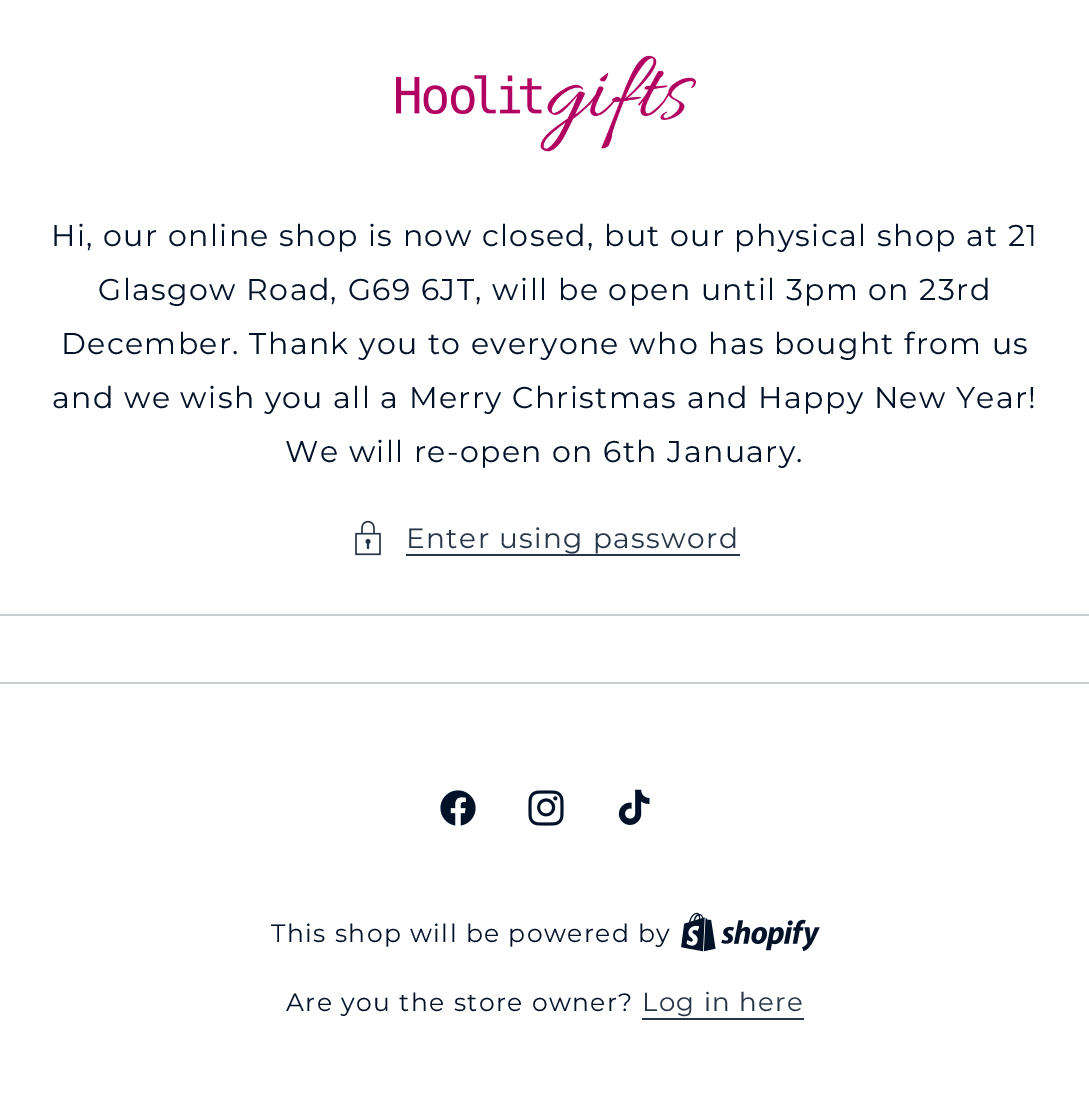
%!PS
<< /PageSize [1089 1105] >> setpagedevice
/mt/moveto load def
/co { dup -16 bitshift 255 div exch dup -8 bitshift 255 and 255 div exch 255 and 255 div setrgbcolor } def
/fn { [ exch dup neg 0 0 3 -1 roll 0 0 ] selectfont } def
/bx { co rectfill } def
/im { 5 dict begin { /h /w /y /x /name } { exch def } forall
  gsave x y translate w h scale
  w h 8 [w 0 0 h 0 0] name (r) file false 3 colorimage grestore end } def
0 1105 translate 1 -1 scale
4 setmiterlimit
0 0 1089 1105 16#FFFFFF bx
(media/1.raw) 396 55 300 97 im
(media/2.raw) 355 520 26 36 im
406 554 334 2 16#263548 bx
0 614 1089 2 16#CCCFD4 bx
0 682 1089 2 16#CCCFD4 bx
(media/3.raw) 440 790 36 36 im
(media/4.raw) 528 790 36 36 im
(media/5.raw) 618 789 32 36 im
(media/6.raw) 681 912 139 40 im
642 1018 162 2 16#263548 bx
/Montserrat-Regular 30 fn
16#001128 co
51 246 mt 1.4 0 (Hi, our online shop is now closed, but our physical shop at 21) ashow
98 300 mt 1.4 0 (Glasgow Road, G69 6JT, will be open until 3pm on 23rd) ashow
61 354 mt 1.4 0 (December. Thank you to everyone who has bought from us) ashow
52 408 mt 1.4 0 (and we wish you all a Merry Christmas and Happy New Year!) ashow
285 462 mt 1.4 0 (We will re-open on 6th January.) ashow
/Montserrat-Regular 28 fn
16#263548 co
406 548 mt 1.4 0 (Enter using password) ashow
/Montserrat-Regular 25 fn
16#001128 co
271 942 mt 1.4 0 (This shop will be powered by) ashow
286 1011 mt 1.4 0 (Are you the store owner?) ashow
/Montserrat-Regular 26 fn
16#263548 co
642 1011 mt 1.4 0 (Log in here) ashow
showpage
